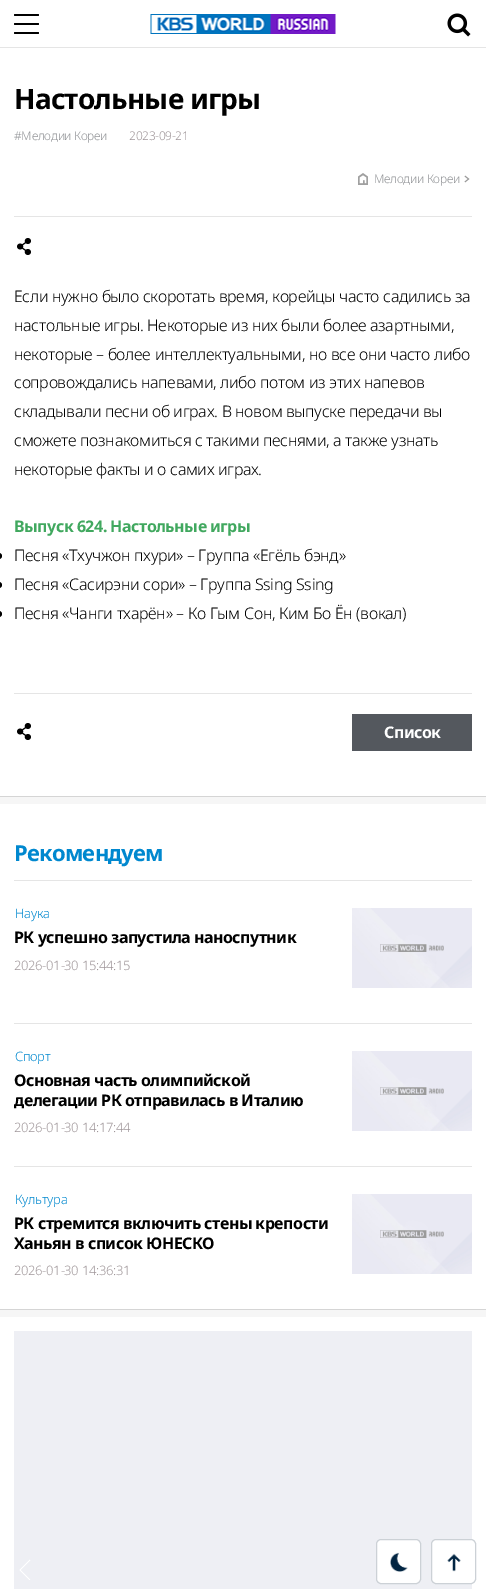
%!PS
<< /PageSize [486 1589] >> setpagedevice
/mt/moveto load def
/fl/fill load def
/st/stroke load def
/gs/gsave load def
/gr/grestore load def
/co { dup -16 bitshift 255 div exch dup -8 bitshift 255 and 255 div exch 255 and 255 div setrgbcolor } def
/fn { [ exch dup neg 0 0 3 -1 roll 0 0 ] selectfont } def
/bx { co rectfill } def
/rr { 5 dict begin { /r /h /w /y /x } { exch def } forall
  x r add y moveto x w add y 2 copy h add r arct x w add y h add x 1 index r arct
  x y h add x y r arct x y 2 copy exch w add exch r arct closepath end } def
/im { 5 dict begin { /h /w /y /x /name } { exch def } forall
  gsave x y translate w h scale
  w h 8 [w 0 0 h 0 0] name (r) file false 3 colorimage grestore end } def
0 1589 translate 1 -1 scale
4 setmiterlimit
0 0 486 1589 16#FFFFFF bx
(media/1.raw) 150 14 186 20 im
(media/2.raw) 447 13 24 24 im
0 47 486 1 16#E5E5E5 bx
16#000000 co
14 14 25 2 1 rr fl
14 23 25 2 1 rr fl
14 32 25 2 1 rr fl
14 1331 458 258 16#EEEFF4 bx
16#FFFFFF co
376.5 1539.5 44 44 4.5 rr gs fl gr
16#CCD1D6 co
st
(media/3.raw) 390 1552 18 20 im
16#FFFFFF co
431.5 1539.5 44 44 4.5 rr gs fl gr
16#CCD1D6 co
st
(media/4.raw) 447 1553 14 19 im
0 797 486 520 16#F6F6F6 bx
0 796 486 1 16#D5D5D5 bx
14 216 458 1 16#E5E5E5 bx
(media/5.raw) 358 173 10 12 im
(media/6.raw) 464 175 6 8 im
(media/7.raw) 17 238 14 17 im
16#000000 co
-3 553 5 6 3 rr fl
-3 582 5 6 3 rr fl
-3 611 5 6 3 rr fl
14 693 458 1 16#E5E5E5 bx
(media/7.raw) 17 723 14 17 im
352 714 120 37 16#54585E bx
0 804 486 505 16#FFFFFF bx
0 1309 486 1 16#D5D5D5 bx
14 880 458 1 16#E5E5E5 bx
(media/8.raw) 352 908 120 80 im
14 1023 458 1 16#E5E5E5 bx
(media/8.raw) 352 1051 120 80 im
14 1166 458 1 16#E5E5E5 bx
(media/8.raw) 352 1194 120 80 im
(media/9.raw) 19 1559 12 21 im
/NotoSans-Bold 28 fn
16#000000 co
14 109 mt -.8 0 (Настольные игры) ashow
/NotoSans-Light 12 fn
16#949699 co
14 140 mt -.32 0 (#Мелодии Кореи) ashow
16#9F9699 co
129 140 mt -.32 0 (2023-09-21) ashow
16#949699 co
374 183 mt -.32 0 (Мелодии Кореи) ashow
/NotoSans-Light 16 fn
16#000000 co
14 302 mt -.32 0 (Если нужно было скоротать время, корейцы часто садились за) ashow
14 331 mt -.32 0 (настольные игры. Некоторые из них были более азартными,) ashow
14 360 mt -.32 0 (некоторые – более интеллектуальными, но все они часто либо) ashow
14 388 mt -.32 0 (сопровождались напевами, либо потом из этих напевов) ashow
14 417 mt -.32 0 (складывали песни об играх. В новом выпуске передачи вы) ashow
14 446 mt -.32 0 (сможете познакомиться с такими песнями, а также узнать) ashow
14 475 mt -.32 0 (некоторые факты и о самих играх.) ashow
/NotoSans-Bold 16 fn
16#41A85F co
14 532 mt -.5 0 (Выпуск 624. Настольные игры) ashow
/NotoSans-Light 16 fn
16#000000 co
14 561 mt -.32 0 (Песня «Тхучжон пхури» – Группа «Егёль бэнд») ashow
14 590 mt -.32 0 (Песня «Сасирэни сори» – Группа Ssing Ssing) ashow
14 619 mt -.32 0 (Песня «Чанги тхарён» – Ко Гым Сон, Ким Бо Ён \(вокал\)) ashow
/NotoSans-Bold 16 fn
16#FFFFFF co
384 738 mt -.5 0 (Список) ashow
/NotoSans-Bold 22 fn
16#0088CF co
14 861 mt -.75 0 (Рекомендуем) ashow
/NotoSans-Light 13 fn
15 918 mt -.32 0 (Наука) ashow
/NotoSans-Bold 16 fn
16#000000 co
14 943 mt -.5 0 (РК успешно запустила наноспутник) ashow
/NotoSans-Light 13 fn
16#9F9699 co
14 970 mt -.32 0 (2026-01-30 15:44:15) ashow
16#0088CF co
15 1061 mt -.32 0 (Спорт) ashow
/NotoSans-Bold 16 fn
16#000000 co
14 1086 mt -.5 0 (Основная часть олимпийской) ashow
14 1106 mt -.5 0 (делегации РК отправилась в Италию) ashow
/NotoSans-Light 13 fn
16#9F9699 co
14 1132 mt -.32 0 (2026-01-30 14:17:44) ashow
16#0088CF co
15 1204 mt -.32 0 (Культура) ashow
/NotoSans-Bold 16 fn
16#000000 co
14 1229 mt -.5 0 (РК стремится включить стены крепости) ashow
14 1249 mt -.5 0 (Ханьян в список ЮНЕСКО) ashow
/NotoSans-Light 13 fn
16#9F9699 co
14 1275 mt -.32 0 (2026-01-30 14:36:31) ashow
showpage
